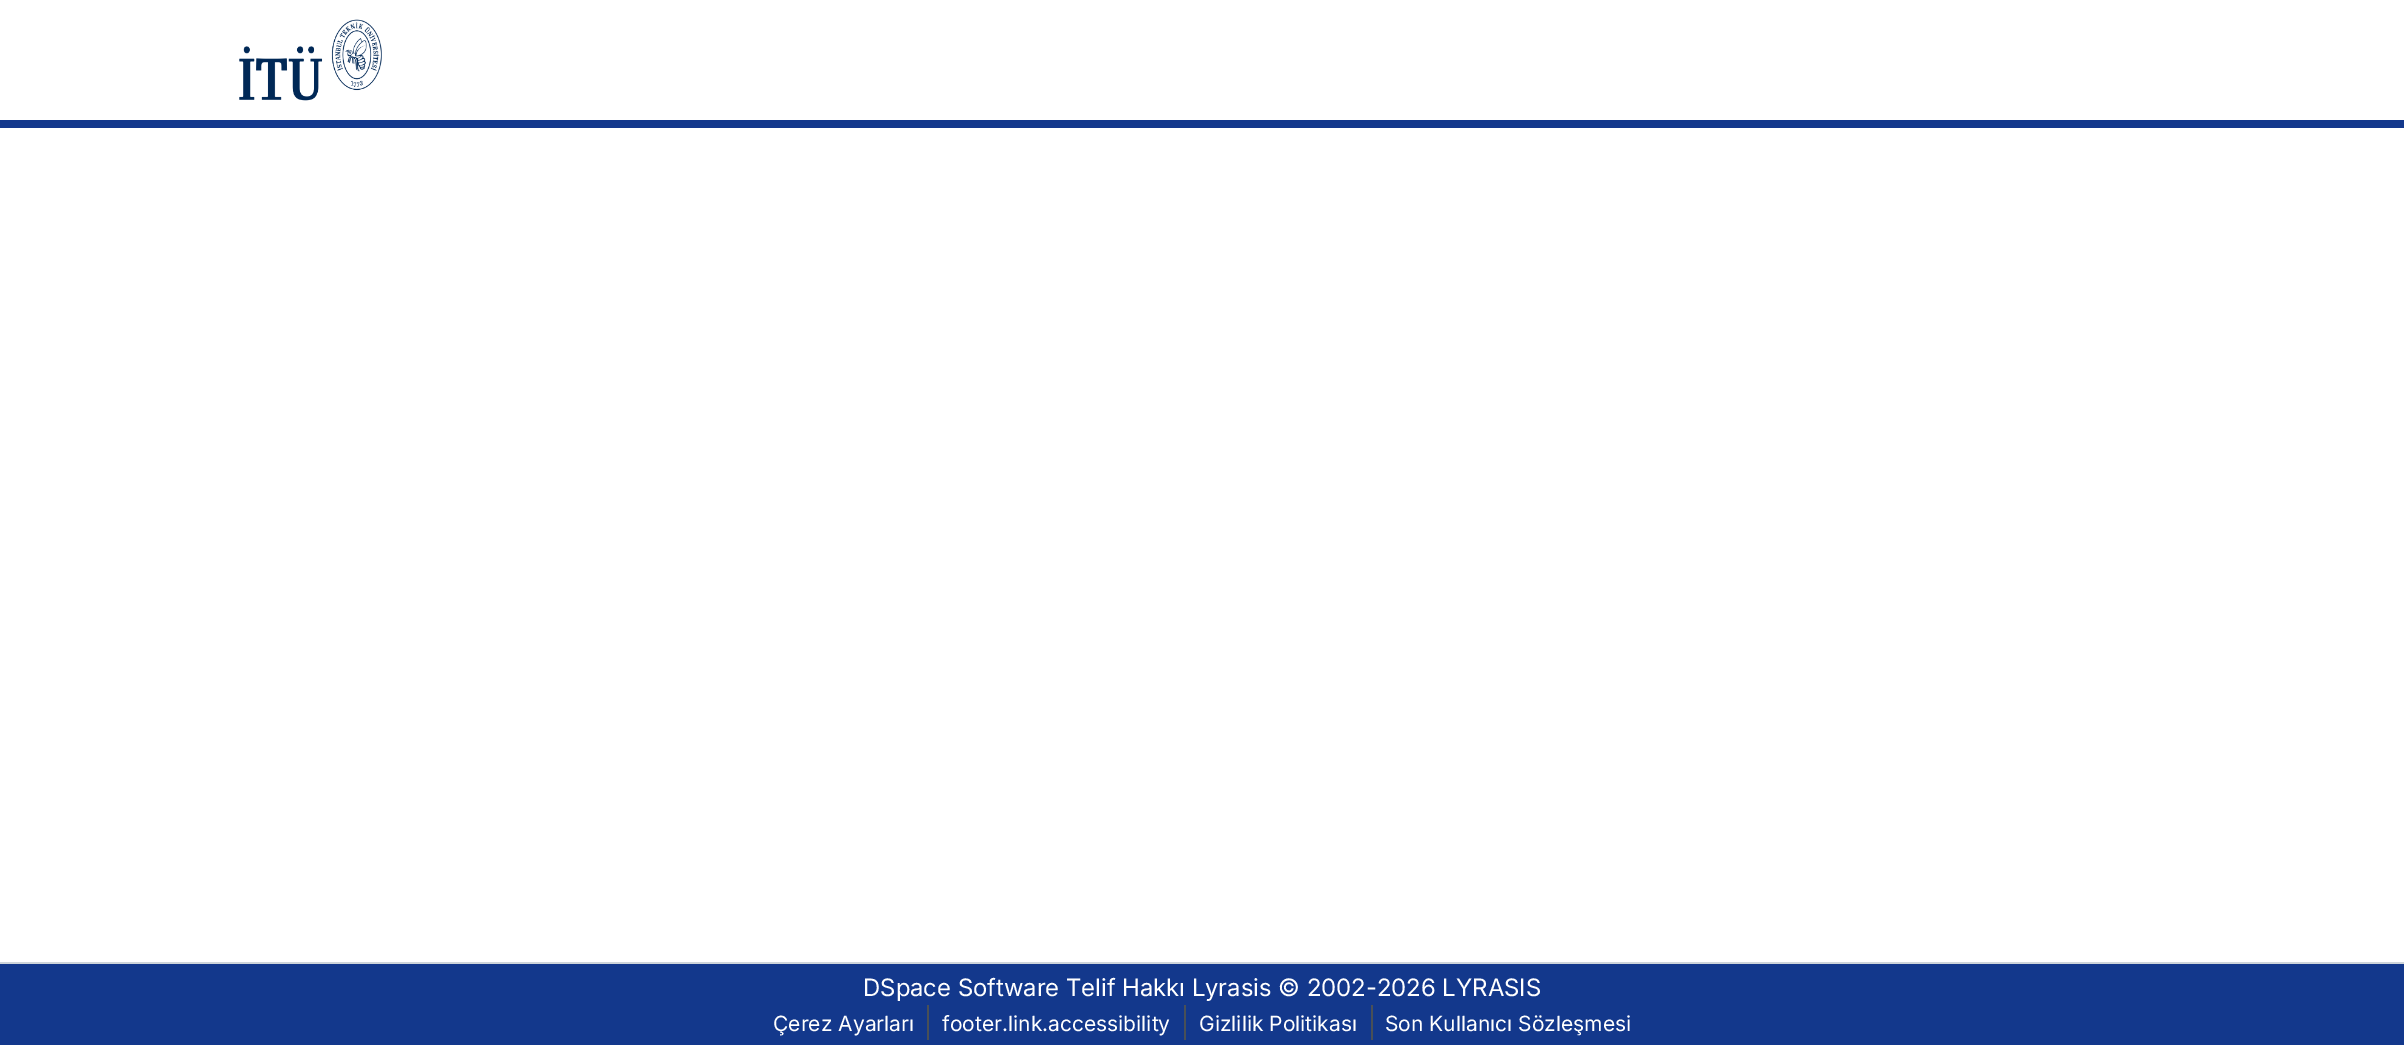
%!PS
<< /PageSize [2404 1045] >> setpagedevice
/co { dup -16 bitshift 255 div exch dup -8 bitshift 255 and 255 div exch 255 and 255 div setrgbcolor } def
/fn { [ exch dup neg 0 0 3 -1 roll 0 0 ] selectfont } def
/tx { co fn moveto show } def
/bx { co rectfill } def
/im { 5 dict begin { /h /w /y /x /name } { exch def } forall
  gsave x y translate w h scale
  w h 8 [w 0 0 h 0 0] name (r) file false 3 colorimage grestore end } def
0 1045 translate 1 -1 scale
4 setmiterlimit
0 0 2404 1045 16#FFFFFF bx
0 120 2404 8 16#13388C bx
(media/1.raw) 239 19 143 82 im
0 964 2404 81 16#13388C bx
0 962 2404 2 16#CED4DA bx
927 1005 2 35 16#495057 bx
1184 1005 2 35 16#495057 bx
1371 1005 2 35 16#495057 bx
(DSpace Software Telif Hakkı Lyrasis © 2002-2026 LYRASIS) 863 996 /Inter-Regular 24 16#FFFFFF tx
(Çerez Ayarları) 773 1031 /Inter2-Regular 21 16#FFFFFF tx
(footer.link.accessibility) 942 1031 /Inter2-Regular 21 16#FFFFFF tx
(Gizlilik Politikası) 1199 1031 /Inter2-Regular 21 16#FFFFFF tx
(Son Kullanıcı Sözleşmesi) 1385 1031 /Inter2-Regular 21 16#FFFFFF tx
showpage
